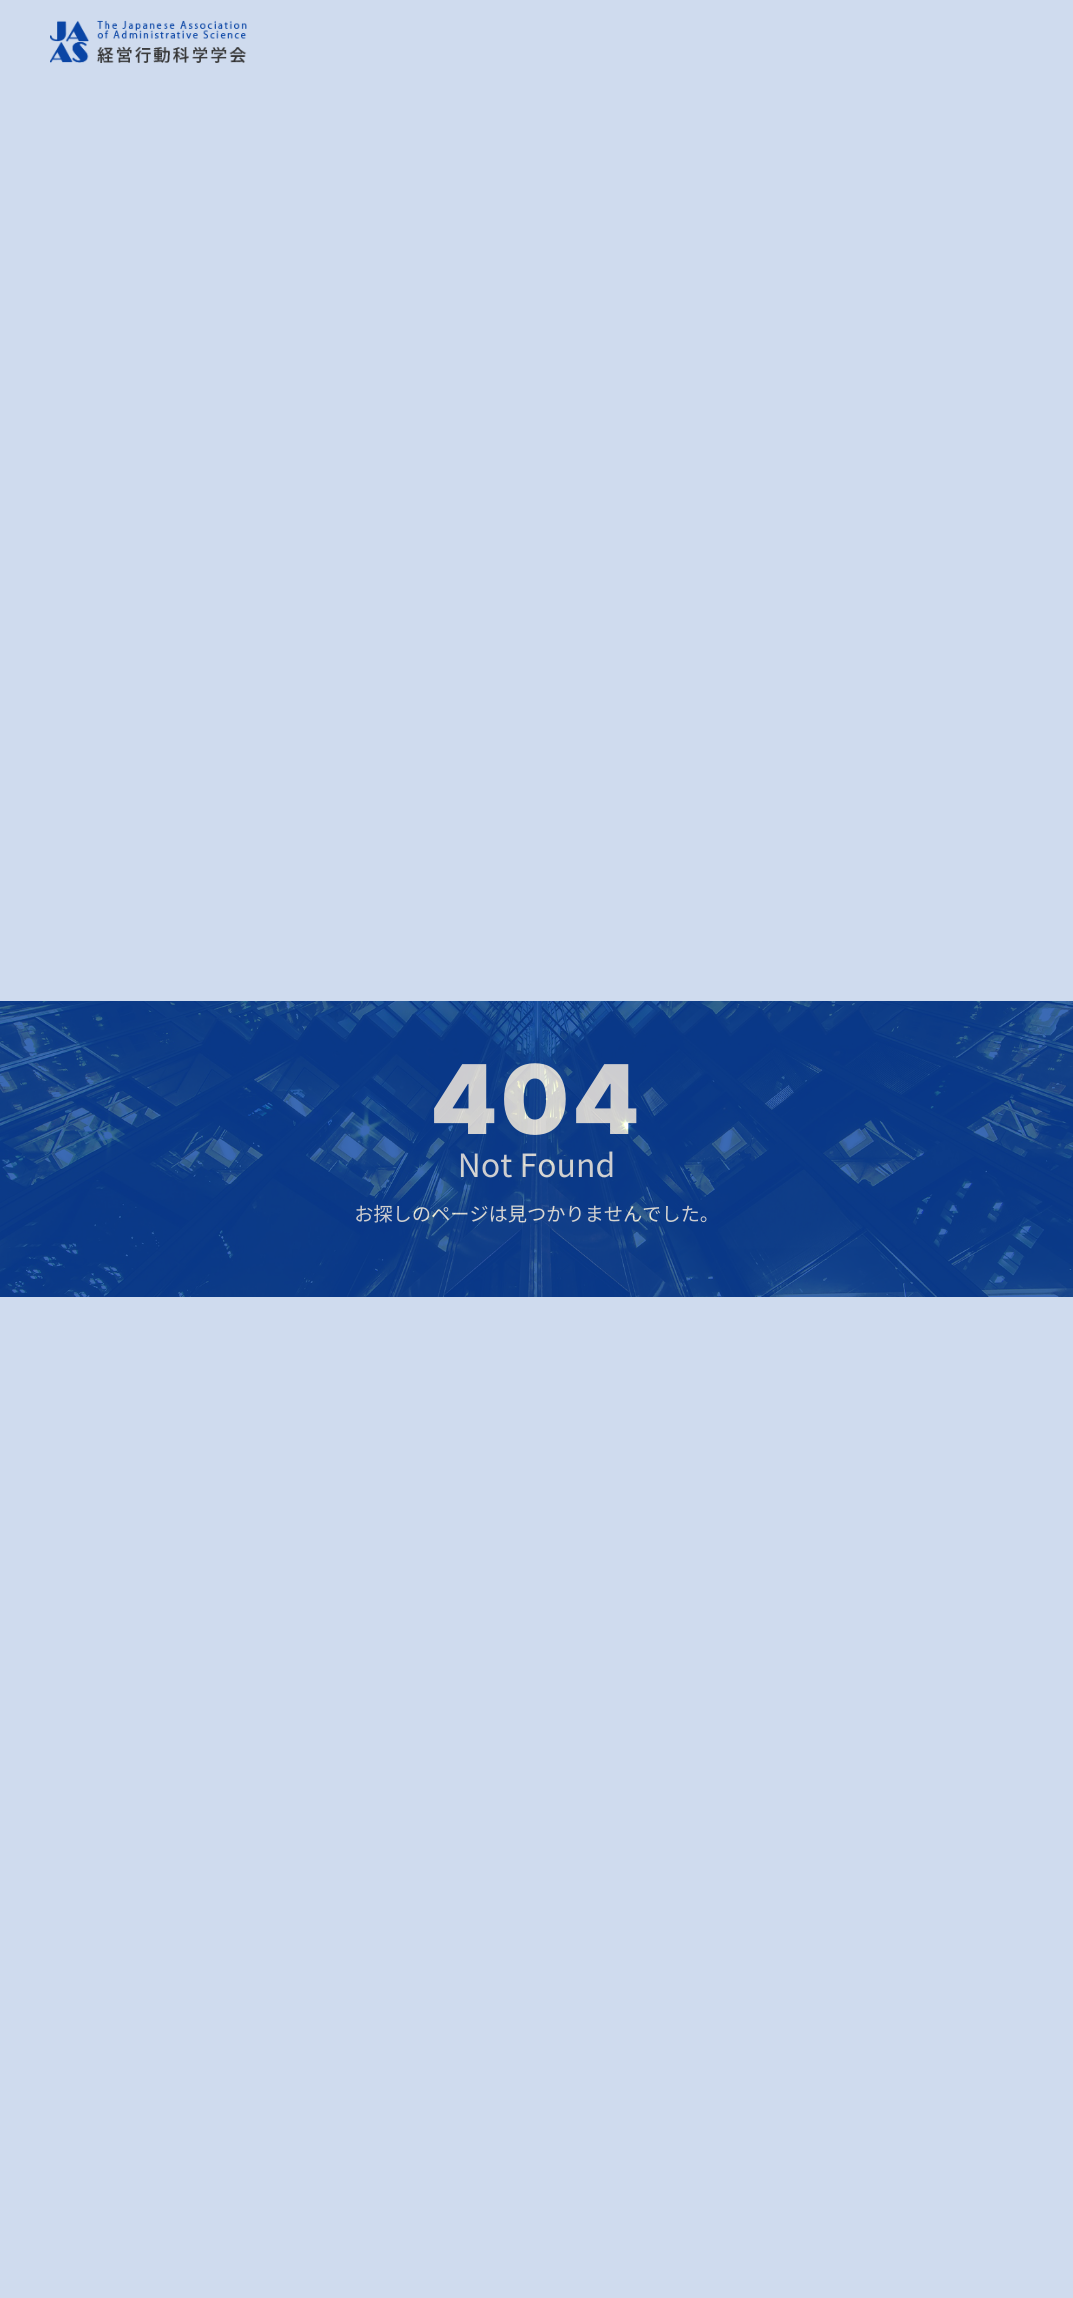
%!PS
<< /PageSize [1073 2298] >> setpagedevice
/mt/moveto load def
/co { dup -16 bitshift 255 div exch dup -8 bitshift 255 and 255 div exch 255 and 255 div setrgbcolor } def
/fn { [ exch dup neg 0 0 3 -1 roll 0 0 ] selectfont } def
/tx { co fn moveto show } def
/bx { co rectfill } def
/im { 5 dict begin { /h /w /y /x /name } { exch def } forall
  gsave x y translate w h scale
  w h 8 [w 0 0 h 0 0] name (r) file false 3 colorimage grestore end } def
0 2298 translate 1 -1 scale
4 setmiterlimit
0 0 1073 2298 16#CFDBEE bx
(media/1.raw) 50 20 197 43 im
0 1001 1073 296 16#0A45A5 bx
/Inter-Black 96 fn
16#FFFFFF co
430 1134 mt 3 0 (404) ashow
(Not Found) 458 1177 /NotoSansJP-Thin 32 16#FFFFFF tx
(お探しのページは見つかりませんでした。) 354 1221 /NotoSansJP-Bold 19.25 16#FFFFFF tx
(media/2.raw) 0 1001 1073 296 im
showpage
